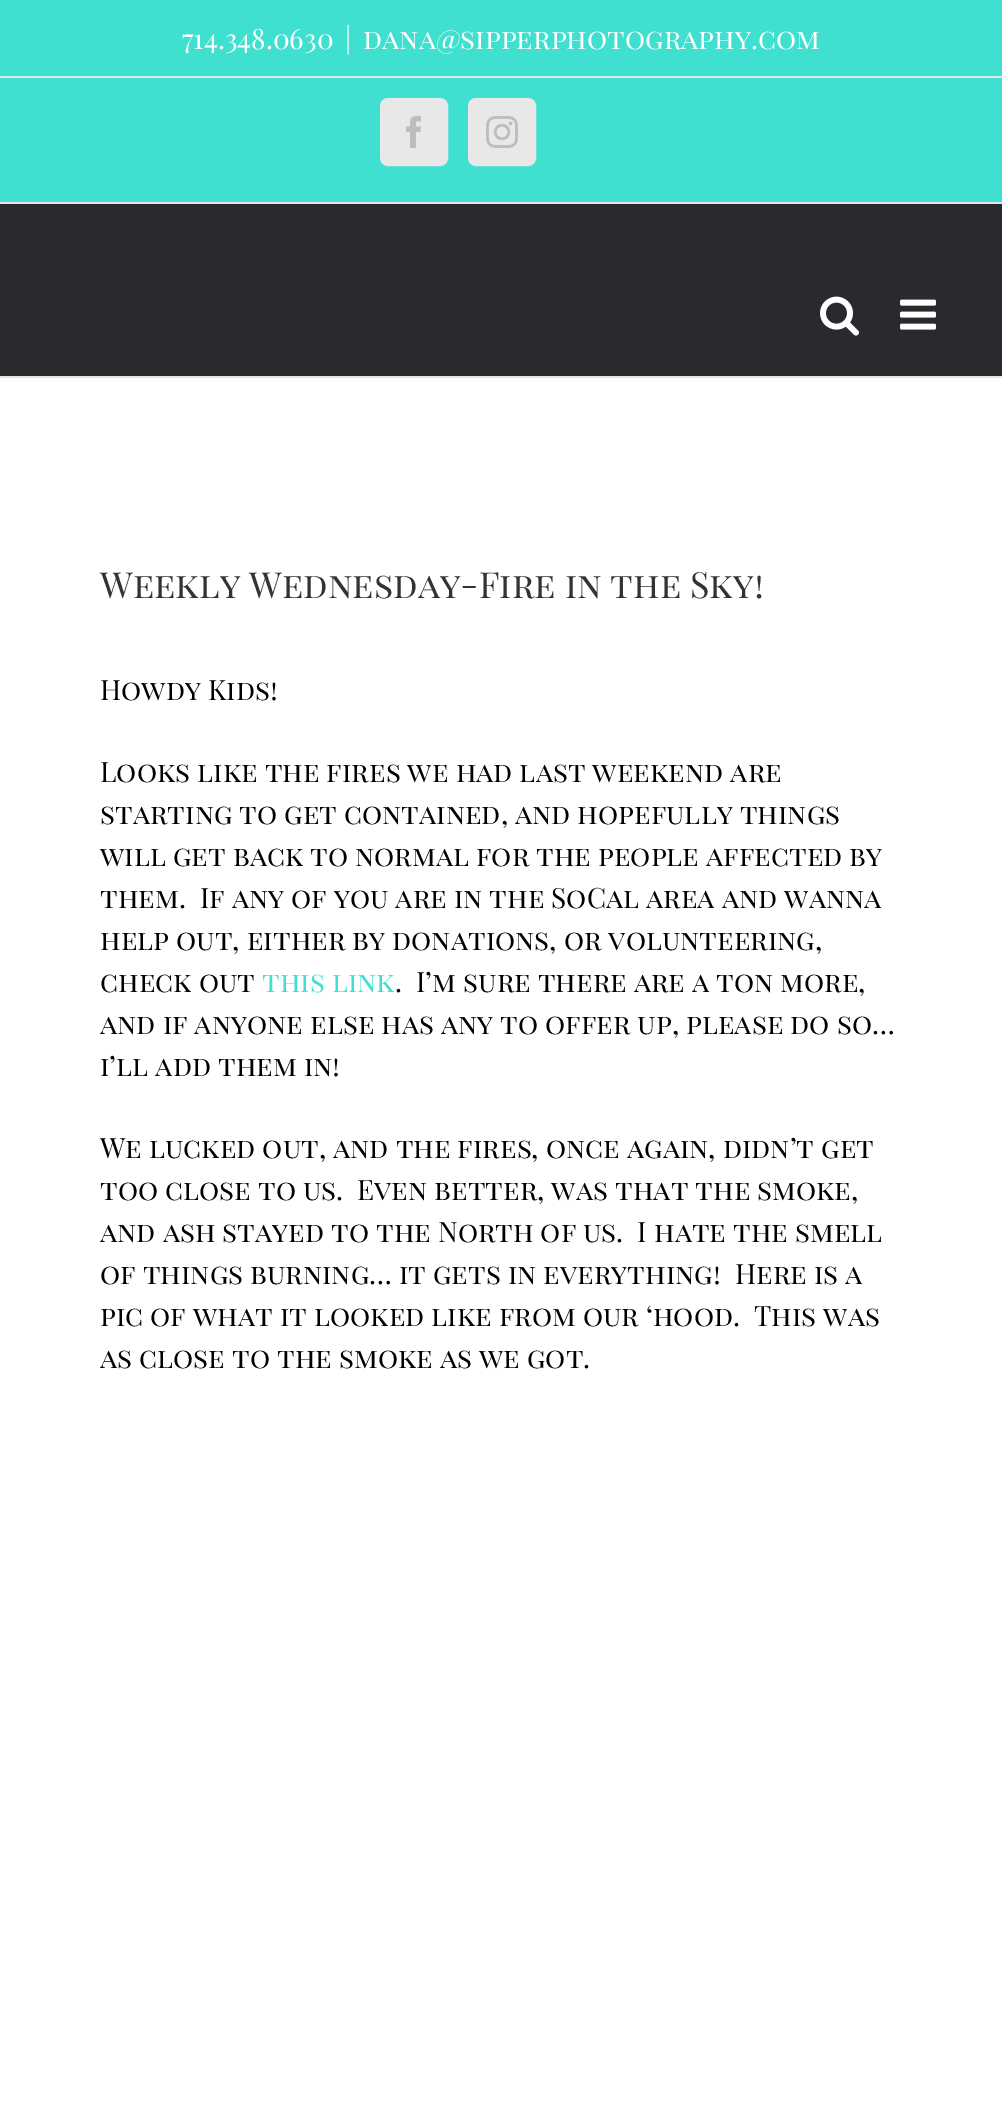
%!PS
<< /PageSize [1002 2107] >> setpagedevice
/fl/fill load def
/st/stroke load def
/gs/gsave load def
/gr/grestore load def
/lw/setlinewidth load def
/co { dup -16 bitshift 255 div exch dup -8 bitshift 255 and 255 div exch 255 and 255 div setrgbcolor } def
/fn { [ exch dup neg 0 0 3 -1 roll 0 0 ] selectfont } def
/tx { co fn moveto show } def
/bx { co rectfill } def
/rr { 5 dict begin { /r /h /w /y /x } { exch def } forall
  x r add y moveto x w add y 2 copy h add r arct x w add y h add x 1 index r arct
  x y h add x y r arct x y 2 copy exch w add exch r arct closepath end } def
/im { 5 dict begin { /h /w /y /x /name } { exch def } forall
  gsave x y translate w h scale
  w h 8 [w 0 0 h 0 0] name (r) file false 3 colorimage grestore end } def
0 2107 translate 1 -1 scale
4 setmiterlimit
0 0 1002 2107 16#FFFFFF bx
0 0 1002 202 16#40E0D0 bx
0 202 1002 2 16#E5E5E5 bx
0 76 1002 2 16#E5E5E5 bx
16#E8E8E8 co
381 99 66 66 7 rr gs fl gr
2 lw
st
(media/1.raw) 406 116 15 32 im
469 99 66 66 7 rr gs fl gr
st
(media/2.raw) 486 116 32 32 im
0 204 1002 172 16#282A2D bx
0 376 1002 2 16#E5E5E5 bx
(media/3.raw) 820 296 39 40 im
(media/4.raw) 900 299 36 31 im
(714.348.0630) 182 49 /PlayfairDisplaySC-Regular 28 16#FFFFFF tx
(|) 345 49 /PlayfairDisplaySC-Regular 28 16#FFFFFF tx
(dana@sipperphotography.com) 363 49 /PlayfairDisplaySC-Regular 28 16#FFFFFF tx
(Weekly Wednesday-Fire in the Sky!) 100 598 /PlayfairDisplaySC-Regular 36 16#333333 tx
(Howdy Kids!) 100 700 /PlayfairDisplaySC-Regular 28 16#000000 tx
(Looks like the fires we had last weekend are) 100 782 /PlayfairDisplaySC-Regular 28 16#000000 tx
(starting to get contained, and hopefully things) 100 824 /PlayfairDisplaySC-Regular 28 16#000000 tx
(will get back to normal for the people affected by) 100 866 /PlayfairDisplaySC-Regular 28 16#000000 tx
(them.  If any of you are in the SoCal area and wanna) 100 908 /PlayfairDisplaySC-Regular 28 16#000000 tx
(help out, either by donations, or volunteering,) 100 950 /PlayfairDisplaySC-Regular 28 16#000000 tx
(check out) 100 992 /PlayfairDisplaySC-Regular 28 16#000000 tx
(this link) 262 992 /PlayfairDisplaySC-Regular 28 16#40E0D0 tx
(.  I’m sure there are a ton more,) 395 992 /PlayfairDisplaySC-Regular 28 16#000000 tx
(and if anyone else has any to offer up, please do so…) 100 1034 /PlayfairDisplaySC-Regular 28 16#000000 tx
(i’ll add them in!) 100 1076 /PlayfairDisplaySC-Regular 28 16#000000 tx
(We lucked out, and the fires, once again, didn’t get) 100 1158 /PlayfairDisplaySC-Regular 28 16#000000 tx
(too close to us.  Even better, was that the smoke,) 100 1200 /PlayfairDisplaySC-Regular 28 16#000000 tx
(and ash stayed to the North of us.  I hate the smell) 100 1242 /PlayfairDisplaySC-Regular 28 16#000000 tx
(of things burning… it gets in everything!  Here is a) 100 1284 /PlayfairDisplaySC-Regular 28 16#000000 tx
(pic of what it looked like from our ‘hood.  This was) 100 1326 /PlayfairDisplaySC-Regular 28 16#000000 tx
(as close to the smoke as we got.) 100 1368 /PlayfairDisplaySC-Regular 28 16#000000 tx
showpage
